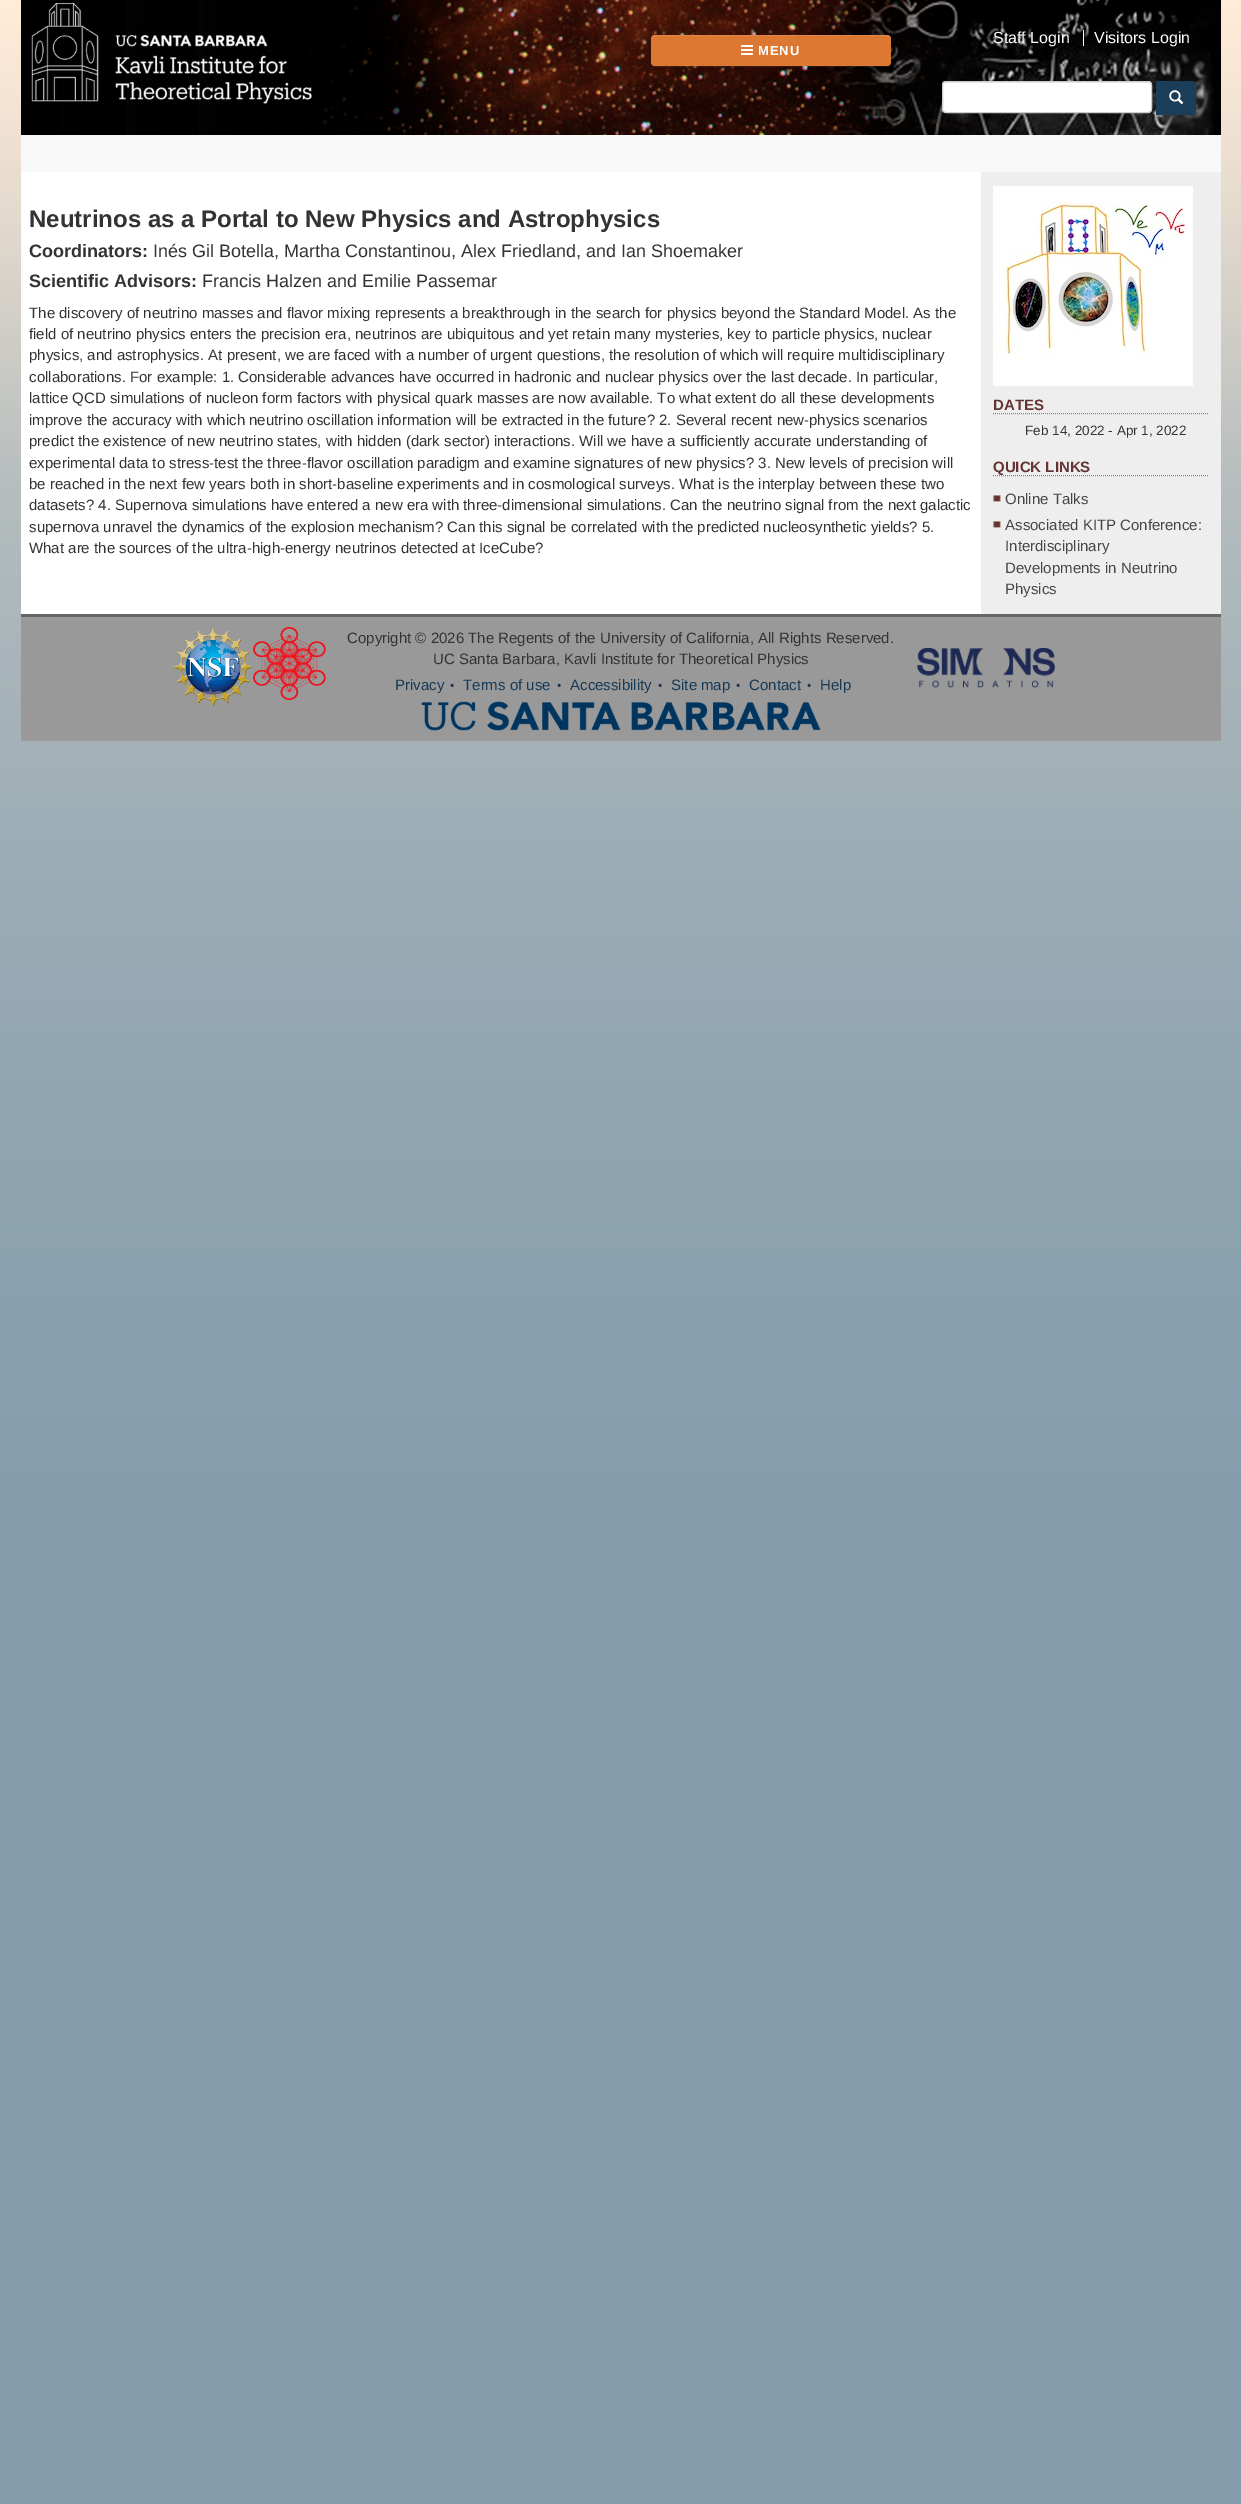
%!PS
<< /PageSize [1241 2504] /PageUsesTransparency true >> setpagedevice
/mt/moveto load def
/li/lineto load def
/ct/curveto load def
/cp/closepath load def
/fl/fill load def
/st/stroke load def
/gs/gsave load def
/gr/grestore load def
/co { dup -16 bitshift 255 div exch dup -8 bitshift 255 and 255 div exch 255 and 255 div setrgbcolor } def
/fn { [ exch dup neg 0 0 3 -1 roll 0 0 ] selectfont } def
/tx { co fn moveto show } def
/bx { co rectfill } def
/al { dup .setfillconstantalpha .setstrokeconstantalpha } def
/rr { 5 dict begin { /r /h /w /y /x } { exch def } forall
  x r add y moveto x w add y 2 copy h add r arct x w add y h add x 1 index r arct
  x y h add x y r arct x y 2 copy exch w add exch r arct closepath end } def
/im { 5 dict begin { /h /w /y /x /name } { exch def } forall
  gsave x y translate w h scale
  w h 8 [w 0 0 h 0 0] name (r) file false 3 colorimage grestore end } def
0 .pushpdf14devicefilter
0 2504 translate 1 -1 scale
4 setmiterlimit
0 0 1241 2504 16#829CAB bx
(media/1.raw) 0 0 1241 1472 im
21 135 1200 37 16#F8F8F8 bx
(media/2.raw) 21 0 1200 135 im
(media/3.raw) 31 3 281 101 im
1083 30 1 16 16#FFFFFF bx
942 81 210 32 4 rr fl
16#ECECEC co
946 83 mt 1148 83 li 1150 83 1151 84 1151 86 ct 1151 84 1150 82 1148 82 ct 945 82 li 943 83 943 84 943 86 ct 943 84 944 83 946 83 ct cp fl
16#CCCCCC co
942.5 81.5 209 31 3.5 rr st
16#1A3D59 co
1156.5 81.5 mt 1192 81.5 li 1194 81.5 1195.5 83 1195.5 85 ct 1195.5 111 li 1195.5 113 1194 114.5 1192 114.5 ct 1156.5 114.5 li cp gs fl gr
st
(media/4.raw) 1169 90 15 15 im
0.07 al
16#FFFFFF co
651 62 mt 651 65 652 67 655 67 ct 887 67 li 890 67 891 65 891 62 ct 891 64 889 66 887 66 ct 655 66 li 653 66 651 64 651 62 ct cp fl
1 al
16#DD7833 co
651 35 240 31 4 rr fl
0.1 al
16#FFFFFF co
655 36 mt 887 36 li 889 36 891 38 891 40 ct 891 37 890 35 887 35 ct 655 35 li 652 35 651 37 651 40 ct 651 38 653 36 655 36 ct cp fl
1 al
(media/5.raw) 741 45 12 10 im
21 172 960 442 16#FFFFFF bx
981 172 240 442 16#EEEEEE bx
(media/6.raw) 993 186 200 200 im
16#A67C52 co
[1 1] 0 setdash
993 413.5 mt 1209 413.5 li st
993 475.5 mt 1209 475.5 li st
(media/7.raw) 993 495 8 7 im
(media/7.raw) 993 521 8 7 im
21 617 1200 124 16#999999 bx
21 614 1200 3 16#666666 bx
(media/8.raw) 174 628 78 78 im
(media/9.raw) 253 627 73 73 im
(media/10.raw) 450 683 4 4 im
(media/10.raw) 557 683 4 4 im
(media/10.raw) 658 683 4 4 im
(media/10.raw) 736 683 4 4 im
(media/10.raw) 807 683 4 4 im
(media/11.raw) 421 701 400 30 im
(media/12.raw) 917 648 139 40 im
(Staff Login) 993 43 /LiberationSans-Regular 16 16#FFFFFF tx
(Visitors Login) 1094 43 /LiberationSans-Regular 16 16#FFFFFF tx
/LiberationSans-Bold 13 fn
758 55 mt 1 0 (MENU) ashow
(Neutrinos as a Portal to New Physics and Astrophysics) 29 227 /LiberationSans-Bold 24 16#333333 tx
(Coordinators:) 29 257 /LiberationSans-Bold 18 16#333333 tx
(Inés Gil Botella, Martha Constantinou, Alex Friedland, and Ian Shoemaker) 153 257 /LiberationSans-Regular 18 16#333333 tx
(Scientific Advisors:) 29 287 /LiberationSans-Bold 18 16#333333 tx
(Francis Halzen and Emilie Passemar) 202 287 /LiberationSans-Regular 18 16#333333 tx
(The discovery of neutrino masses and flavor mixing represents a breakthrough in the search for physics beyond the Standard Model. As the) 29 318 /LiberationSans-Regular 15 16#333333 tx
(field of neutrino physics enters the precision era, neutrinos are ubiquitous and yet retain many mysteries, key to particle physics, nuclear) 29 339 /LiberationSans-Regular 15 16#333333 tx
(physics, and astrophysics. At present, we are faced with a number of urgent questions, the resolution of which will require multidisciplinary) 29 360 /LiberationSans-Regular 15 16#333333 tx
(collaborations. For example: 1. Considerable advances have occurred in hadronic and nuclear physics over the last decade. In particular,) 29 382 /LiberationSans-Regular 15 16#333333 tx
(lattice QCD simulations of nucleon form factors with physical quark masses are now available. To what extent do all these developments) 29 403 /LiberationSans-Regular 15 16#333333 tx
(improve the accuracy with which neutrino oscillation information will be extracted in the future? 2. Several recent new-physics scenarios) 29 425 /LiberationSans-Regular 15 16#333333 tx
(predict the existence of new neutrino states, with hidden \(dark sector\) interactions. Will we have a sufficiently accurate understanding of) 29 446 /LiberationSans-Regular 15 16#333333 tx
(experimental data to stress-test the three-flavor oscillation paradigm and examine signatures of new physics? 3. New levels of precision will) 29 468 /LiberationSans-Regular 15 16#333333 tx
(be reached in the next few years both in short-baseline experiments and in cosmological surveys. What is the interplay between these two) 29 489 /LiberationSans-Regular 15 16#333333 tx
(datasets? 4. Supernova simulations have entered a new era with three-dimensional simulations. Can the neutrino signal from the next galactic) 29 510 /LiberationSans-Regular 15 16#333333 tx
(supernova unravel the dynamics of the explosion mechanism? Can this signal be correlated with the predicted nucleosynthetic yields? 5.) 29 532 /LiberationSans-Regular 15 16#333333 tx
(What are the sources of the ultra-high-energy neutrinos detected at IceCube?) 29 553 /LiberationSans-Regular 15 16#333333 tx
(DATES) 993 410 /LiberationSans-Bold 15 16#663333 tx
(Feb 14, 2022 - Apr 1, 2022) 1025 435 /LiberationSans-Regular 13.5 16#333333 tx
(QUICK LINKS) 993 472 /LiberationSans-Bold 15 16#663333 tx
(Online Talks) 1005 504 /LiberationSans-Regular 15 16#464646 tx
(Associated KITP Conference:) 1005 530 /LiberationSans-Regular 15 16#464646 tx
(Interdisciplinary) 1005 551 /LiberationSans-Regular 15 16#464646 tx
(Developments in Neutrino) 1005 573 /LiberationSans-Regular 15 16#464646 tx
(Physics) 1005 594 /LiberationSans-Regular 15 16#464646 tx
(Copyright © 2026 The Regents of the University of California, All Rights Reserved.) 347 643 /LiberationSans-Regular 15 16#333333 tx
(UC Santa Barbara, Kavli Institute for Theoretical Physics) 433 664 /LiberationSans-Regular 15 16#333333 tx
(Privacy) 395 690 /LiberationSans-Regular 15 16#163955 tx
(Terms of use) 463 690 /LiberationSans-Regular 15 16#163955 tx
(Accessibility) 570 690 /LiberationSans-Regular 15 16#163955 tx
(Site map) 671 690 /LiberationSans-Regular 15 16#163955 tx
(Contact) 749 690 /LiberationSans-Regular 15 16#163955 tx
(Help) 820 690 /LiberationSans-Regular 15 16#163955 tx
.poppdf14devicefilter showpage
